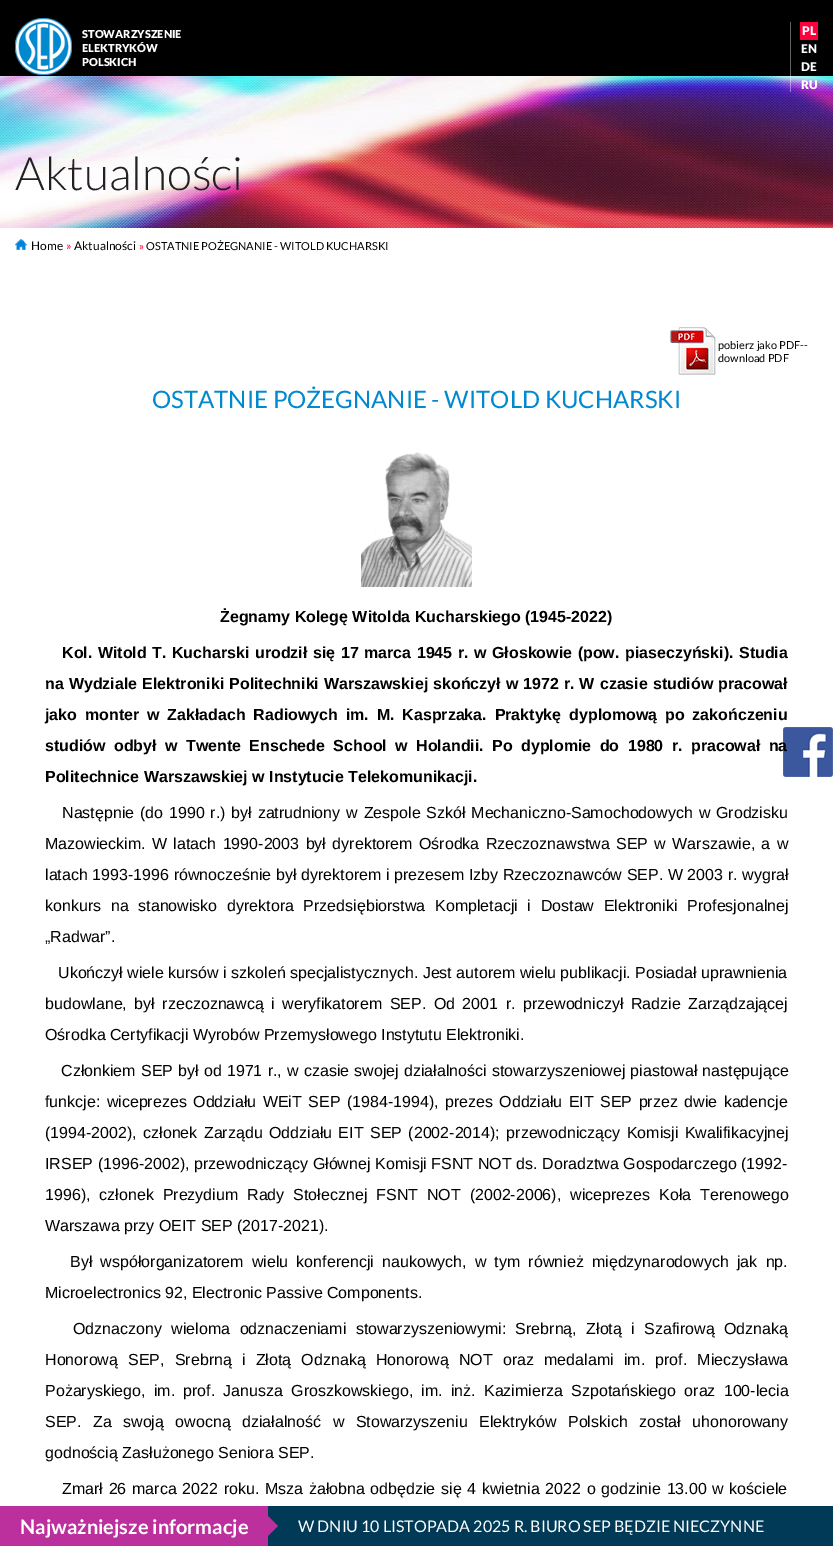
%!PS
<< /PageSize [833 1546] /PageUsesTransparency true >> setpagedevice
/mt/moveto load def
/li/lineto load def
/cp/closepath load def
/fl/fill load def
/co { dup -16 bitshift 255 div exch dup -8 bitshift 255 and 255 div exch 255 and 255 div setrgbcolor } def
/fn { [ exch dup neg 0 0 3 -1 roll 0 0 ] selectfont } def
/tx { co fn moveto show } def
/bx { co rectfill } def
/al { dup .setfillconstantalpha .setstrokeconstantalpha } def
/im { 5 dict begin { /h /w /y /x /name } { exch def } forall
  gsave x y translate w h scale
  w h 8 [w 0 0 h 0 0] name (r) file false 3 colorimage grestore end } def
0 .pushpdf14devicefilter
0 1546 translate 1 -1 scale
4 setmiterlimit
0 0 833 1546 16#FFFFFF bx
0 0 833 76 16#000000 bx
(media/1.raw) 15 18 57 57 im
(media/2.raw) 0 76 833 152 im
0.39 al
790 22 1 70 16#FFFFFF bx
1 al
800 22 18 18 16#FF003C bx
(media/3.raw) 15 239 12 11 im
(media/4.raw) 670 327 46 48 im
(media/5.raw) 361 452 111 135 im
268 1506 565 40 16#003A57 bx
0 1506 268 40 16#BC309D bx
268 1536 mt 268 1516 li 278 1526 li cp fl
(media/6.raw) 783 727 50 50 im
(STOWARZYSZENIE) 82 38 /Lato-Black 11 16#FFFFFF tx
(ELEKTRYKÓW) 82 52 /Lato-Black 11 16#FFFFFF tx
(POLSKICH) 82 66 /Lato-Black 11 16#FFFFFF tx
(PL) 802 35 /Lato-Black 12 16#FFFFFF tx
(EN) 801 53 /Lato-Black 12 16#FFFFFF tx
(DE) 801 71 /Lato-Black 12 16#FFFFFF tx
(RU) 801 89 /Lato-Black 12 16#FFFFFF tx
(Aktualności) 15 190 /Lato-Light 46 16#212121 tx
(Home) 31 250 /Lato-Regular 12 16#000000 tx
(») 66 250 /Lato-Regular 12 16#FF003C tx
(Aktualności) 74 250 /Lato-Regular 12 16#000000 tx
(») 139 250 /Lato-Regular 11 16#FF003C tx
(OSTATNIE POŻEGNANIE - WITOLD KUCHARSKI) 146 250 /Lato-Regular 11 16#000000 tx
(pobierz jako PDF--) 718 349 /Lato-Regular 11 16#000000 tx
(download PDF) 718 362 /Lato-Regular 11 16#000000 tx
(OSTATNIE POŻEGNANIE - WITOLD KUCHARSKI) 152 408 /Lato-Regular 24 16#0089CF tx
(Żegnamy Kolegę Witolda Kucharskiego \(1945-2022\)) 220 622 /LiberationSans-Bold 16 16#000000 tx
62 658 mt 1.1 0 32 (Kol. Witold T. Kucharski urodził się 17 marca 1945 r. w Głoskowie \(pow. piaseczyński\). Studia) widthshow
45 689 mt .6 0 32 (na Wydziale Elektroniki Politechniki Warszawskiej skończył w 1972 r. W czasie studiów pracował) widthshow
45 720 mt 3.4 0 32 (jako monter w Zakładach Radiowych im. M. Kasprzaka. Praktykę dyplomową po zakończeniu) widthshow
45 751 mt 4 0 32 (studiów odbył w Twente Enschede School w Holandii. Po dyplomie do 1980 r. pracował na) widthshow
(Politechnice Warszawskiej w Instytucie Telekomunikacji.) 45 782 /LiberationSans-Bold 16 16#000000 tx
/LiberationSans-Regular 16 fn
62 818 mt 1.4 0 32 (Następnie \(do 1990 r.\) był zatrudniony w Zespole Szkół Mechaniczno-Samochodowych w Grodzisku) widthshow
45 849 mt 2 0 32 (Mazowieckim. W latach 1990-2003 był dyrektorem Ośrodka Rzeczoznawstwa SEP w Warszawie, a w) widthshow
45 880 mt .2 0 32 (latach 1993-1996 równocześnie był dyrektorem i prezesem Izby Rzeczoznawców SEP. W 2003 r. wygrał) widthshow
45 911 mt 5.25 0 32 (konkurs na stanowisko dyrektora Przedsiębiorstwa Kompletacji i Dostaw Elektroniki Profesjonalnej) widthshow
(„Radwar”.) 45 942 /LiberationSans-Regular 16 16#000000 tx
(Ukończył wiele kursów i szkoleń specjalistycznych. Jest autorem wielu publikacji. Posiadał uprawnienia) 58 978 /LiberationSans-Regular 16 16#000000 tx
45 1009 mt 3.1 0 32 (budowlane, był rzeczoznawcą i weryfikatorem SEP. Od 2001 r. przewodniczył Radzie Zarządzającej) widthshow
(Ośrodka Certyfikacji Wyrobów Przemysłowego Instytutu Elektroniki.) 45 1040 /LiberationSans-Regular 16 16#000000 tx
61 1076 mt .75 0 32 (Członkiem SEP był od 1971 r., w czasie swojej działalności stowarzyszeniowej piastował następujące) widthshow
45 1107 mt 2 0 32 (funkcje: wiceprezes Oddziału WEiT SEP \(1984-1994\), prezes Oddziału EIT SEP przez dwie kadencje) widthshow
45 1138 mt 2 0 32 (\(1994-2002\), członek Zarządu Oddziału EIT SEP \(2002-2014\); przewodniczący Komisji Kwalifikacyjnej) widthshow
45 1169 mt .25 0 32 (IRSEP \(1996-2002\), przewodniczący Głównej Komisji FSNT NOT ds. Doradztwa Gospodarczego \(1992-) widthshow
45 1200 mt 4.5 0 32 (1996\), członek Prezydium Rady Stołecznej FSNT NOT \(2002-2006\), wiceprezes Koła Terenowego) widthshow
(Warszawa przy OEIT SEP \(2017-2021\).) 45 1231 /LiberationSans-Regular 16 16#000000 tx
70 1267 mt 3.75 0 32 (Był współorganizatorem wielu konferencji naukowych, w tym również międzynarodowych jak np.) widthshow
(Microelectronics 92, Electronic Passive Components.) 45 1298 /LiberationSans-Regular 16 16#000000 tx
73 1334 mt 5 0 32 (Odznaczony wieloma odznaczeniami stowarzyszeniowymi: Srebrną, Złotą i Szafirową Odznaką) widthshow
45 1365 mt 5.75 0 32 (Honorową SEP, Srebrną i Złotą Odznaką Honorową NOT oraz medalami im. prof. Mieczysława) widthshow
45 1396 mt 3.75 0 32 (Pożaryskiego, im. prof. Janusza Groszkowskiego, im. inż. Kazimierza Szpotańskiego oraz 100-lecia) widthshow
45 1427 mt 7 0 32 (SEP. Za swoją owocną działalność w Stowarzyszeniu Elektryków Polskich został uhonorowany) widthshow
(godnością Zasłużonego Seniora SEP.) 45 1458 /LiberationSans-Regular 16 16#000000 tx
62 1494 mt 1.25 0 32 (Zmarł 26 marca 2022 roku. Msza żałobna odbędzie się 4 kwietnia 2022 o godzinie 13.00 w kościele) widthshow
(Najważniejsze informacje) 20 1534 /Lato-Bold 20 16#FFFFFF tx
(W DNIU 10 LISTOPADA 2025 R. BIURO SEP BĘDZIE NIECZYNNE) 298 1532 /Lato-Regular 16 16#FFFFFF tx
.poppdf14devicefilter showpage
